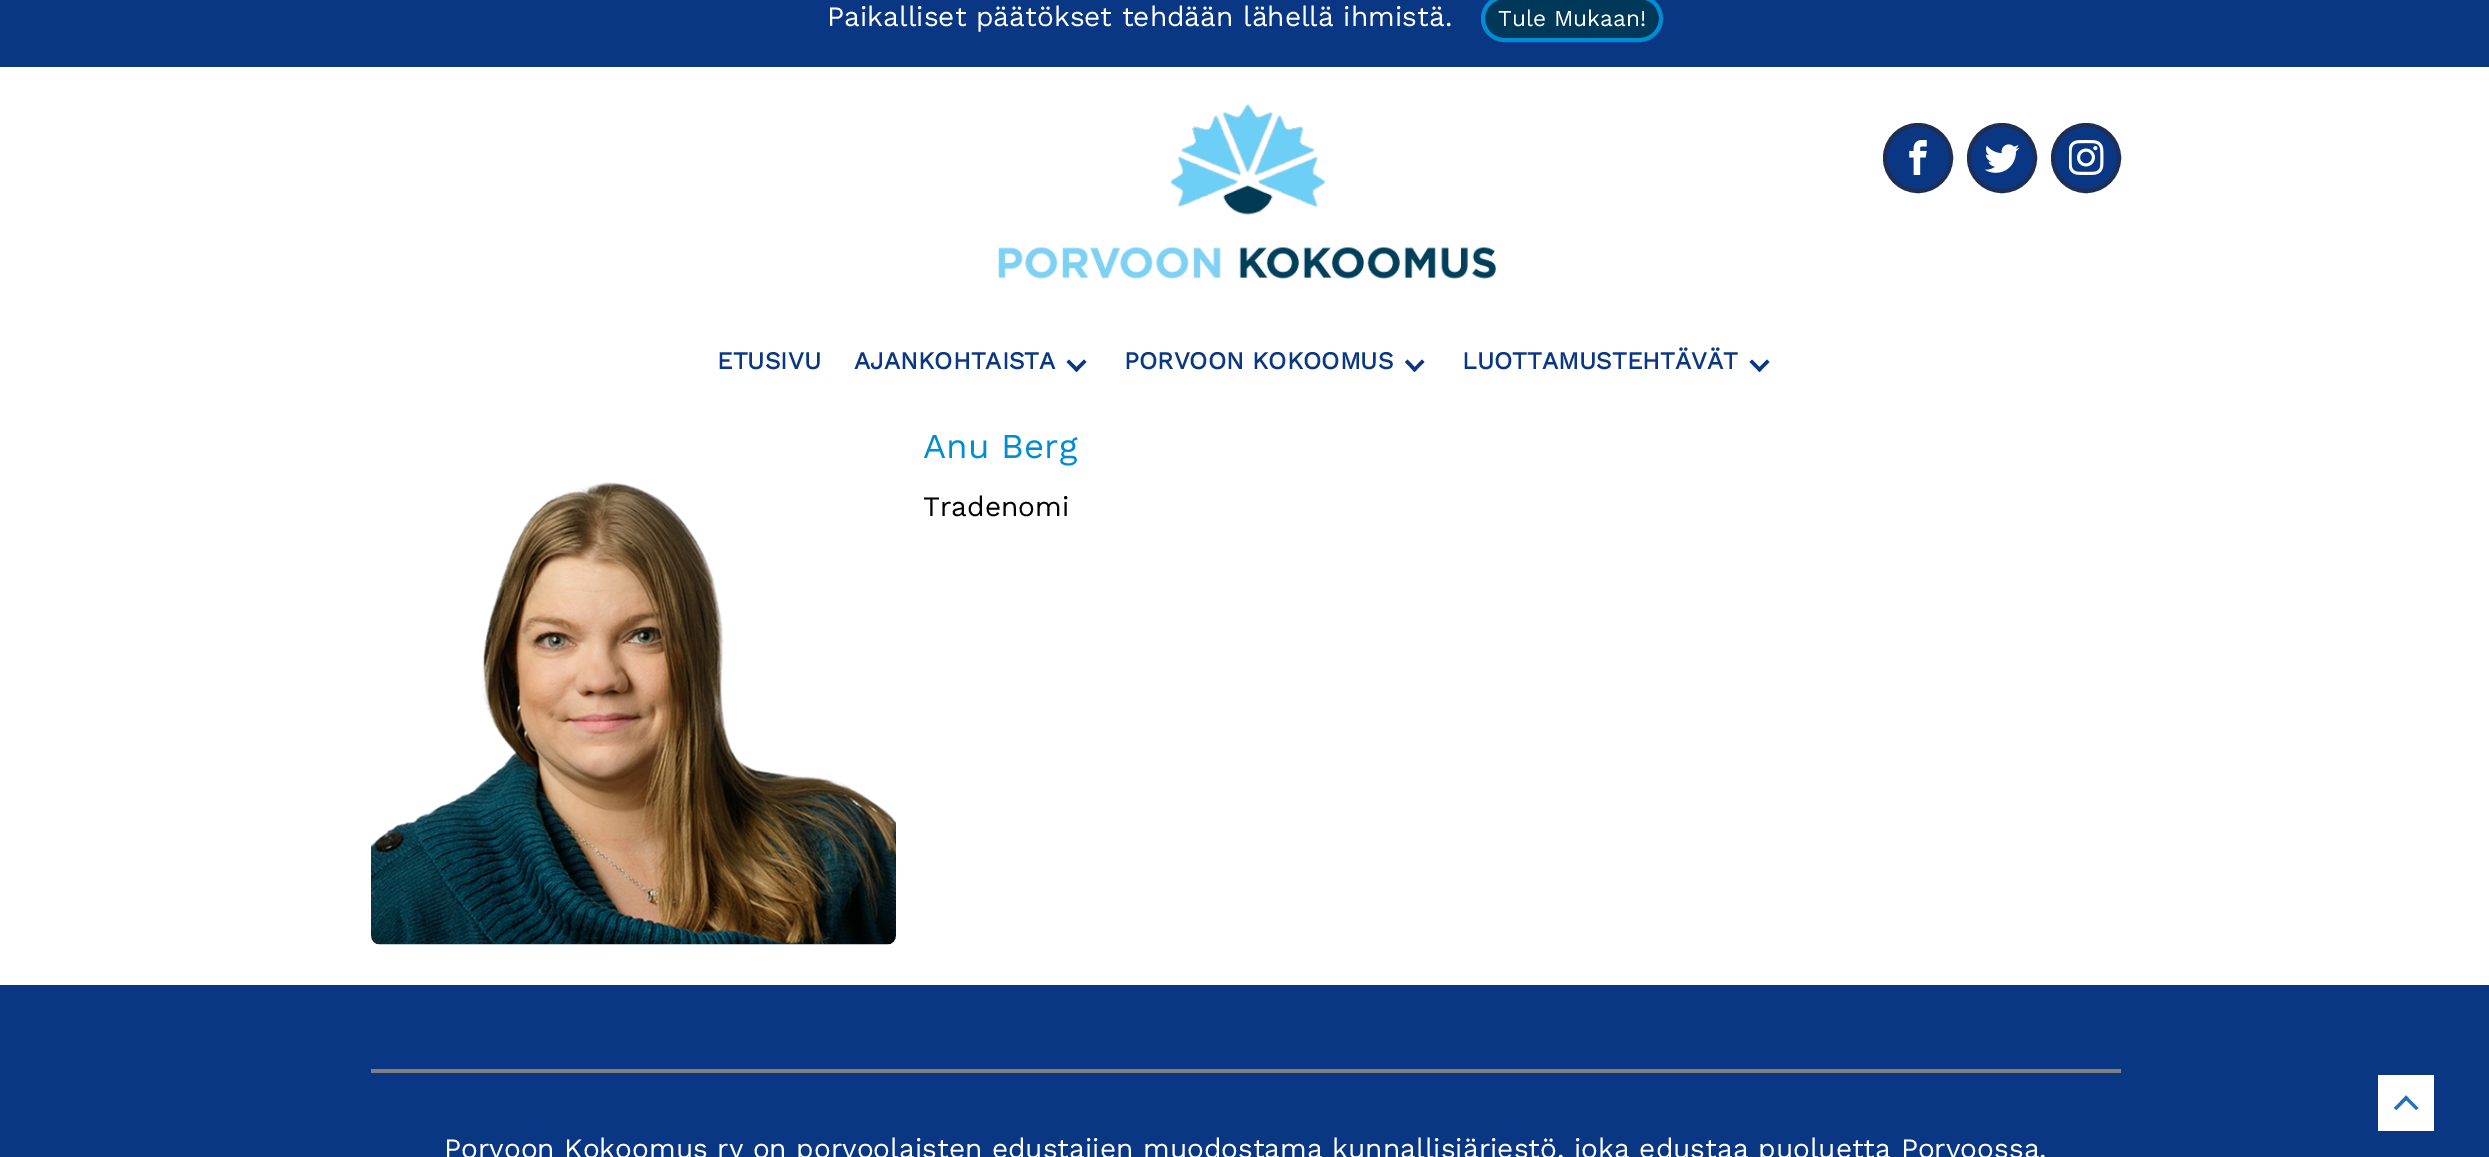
%!PS
<< /PageSize [2489 1157] >> setpagedevice
/mt/moveto load def
/li/lineto load def
/cp/closepath load def
/fl/fill load def
/st/stroke load def
/gs/gsave load def
/gr/grestore load def
/lw/setlinewidth load def
/co { dup -16 bitshift 255 div exch dup -8 bitshift 255 and 255 div exch 255 and 255 div setrgbcolor } def
/fn { [ exch dup neg 0 0 3 -1 roll 0 0 ] selectfont } def
/tx { co fn moveto show } def
/bx { co rectfill } def
/ci { newpath 0 360 arc closepath } def
/rr { 5 dict begin { /r /h /w /y /x } { exch def } forall
  x r add y moveto x w add y 2 copy h add r arct x w add y h add x 1 index r arct
  x y h add x y r arct x y 2 copy exch w add exch r arct closepath end } def
/im { 5 dict begin { /h /w /y /x /name } { exch def } forall
  gsave x y translate w h scale
  w h 8 [w 0 0 h 0 0] name (r) file false 3 colorimage grestore end } def
0 1157 translate 1 -1 scale
4 setmiterlimit
0 0 2489 1157 16#FFFFFF bx
0 0 2489 67 16#0A3784 bx
16#003859 co
1483 -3 178 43 21.5 rr gs fl gr
16#008DD4 co
4 lw
st
(media/1.raw) 998 104 498 175 im
16#0A3784 co
1918 158 33 ci gs fl gr
16#1D2E59 co
st
(media/2.raw) 1909 140 18 35 im
16#0A3784 co
2002 158 33 ci gs fl gr
16#1D2E59 co
st
(media/3.raw) 1985 144 35 29 im
16#0A3784 co
2086 158 33 ci gs fl gr
16#1D2E59 co
st
(media/4.raw) 2069 140 35 35 im
16#0A3784 co
1076.5 372 mt 1066.5 362 li 1069 359.5 li 1079 369.5 li cp fl
1076.5 372 mt 1074 369.5 li 1084 359.5 li 1086.5 362 li cp fl
1414.5 372 mt 1405 362 li 1407.5 359.5 li 1417 369.5 li cp fl
1414.5 372 mt 1412.5 369.5 li 1422 359.5 li 1424.5 362 li cp fl
1759.5 372 mt 1749.5 362 li 1752 359.5 li 1762 369.5 li cp fl
1759.5 372 mt 1757 369.5 li 1767 359.5 li 1769.5 362 li cp fl
(media/5.raw) 371 482 525 463 im
0 985 2489 172 16#0A3784 bx
2378 1075 56 56 16#FFFFFF bx
16#1E73BE co
2406 1095.5 mt 2418.5 1108 li 2416 1110 li 2404 1098 li cp fl
2406 1095.5 mt 2408.5 1098 li 2396.5 1110 li 2394 1108 li cp fl
371 1069 1750 4 16#808080 bx
(Paikalliset päätökset tehdään lähellä ihmistä.) 827 26 /WorkSans-Regular 28 16#FFFFFF tx
(Tule Mukaan!) 1498 26 /WorkSans-Regular 22.75 16#FFFFFF tx
(ETUSIVU) 717 369 /WorkSans-Bold 24.5 16#0A3784 tx
(AJANKOHTAISTA) 854 369 /WorkSans-Bold 24.5 16#0A3784 tx
(PORVOON KOKOOMUS) 1124 369 /WorkSans-Bold 24.5 16#0A3784 tx
(LUOTTAMUSTEHTÄVÄT) 1462 369 /WorkSans-Bold 24.5 16#0A3784 tx
(Anu Berg) 923 458 /WorkSans-Regular 35 16#008DD4 tx
(Tradenomi) 923 516 /WorkSans-Regular 28 16#000000 tx
(Porvoon Kokoomus ry on porvoolaisten edustajien muodostama kunnallisjärjestö, joka edustaa puoluetta Porvoossa.) 444 1158 /WorkSans-Regular 28 16#FFFFFF tx
showpage
